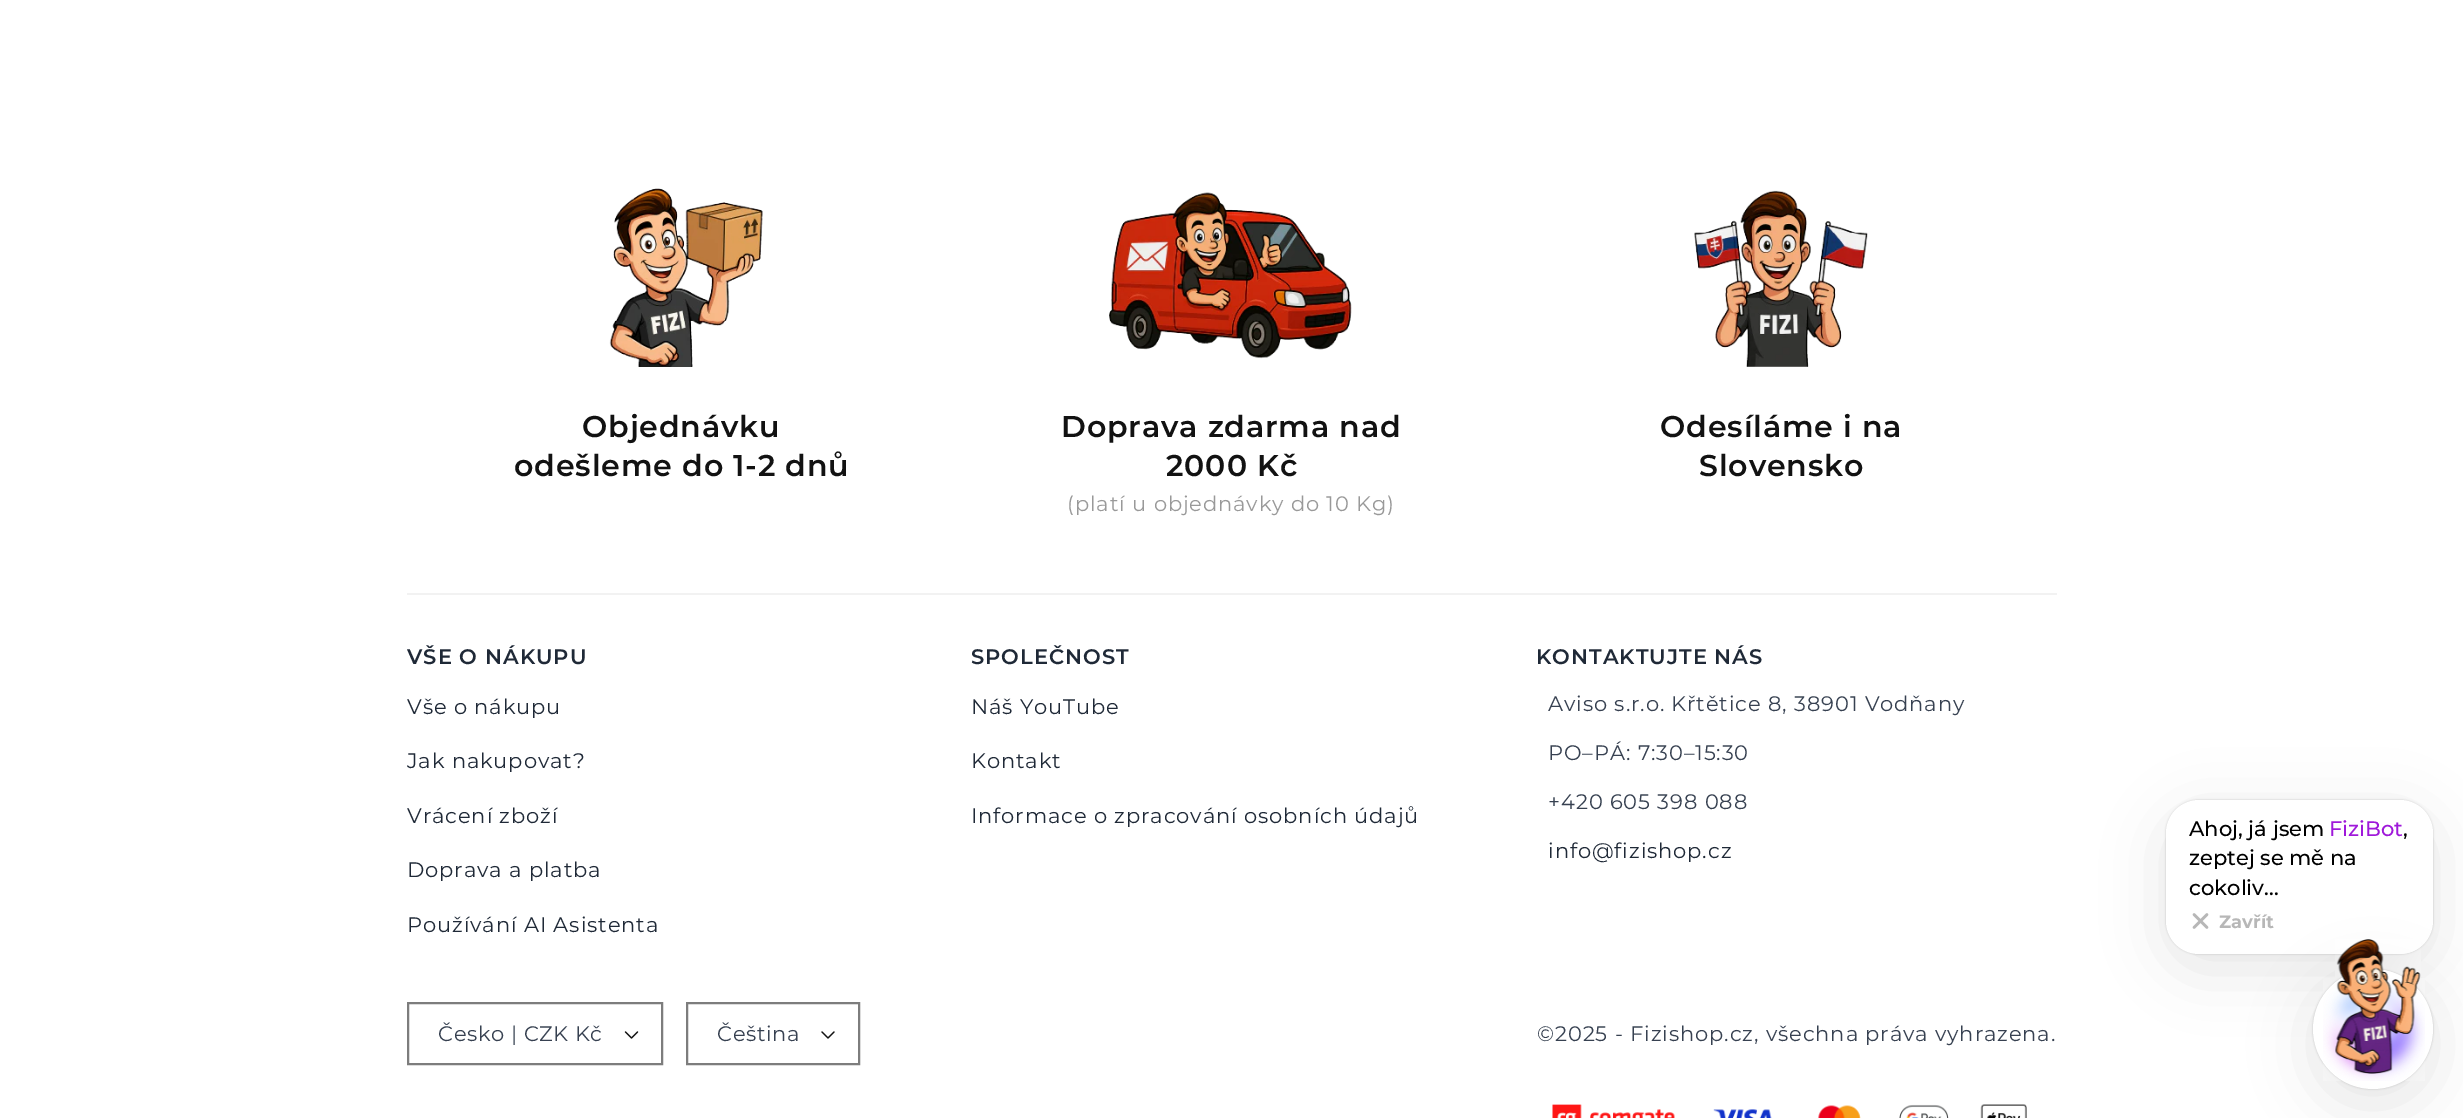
%!PS
<< /PageSize [2463 1118] /PageUsesTransparency true >> setpagedevice
/mt/moveto load def
/fl/fill load def
/lw/setlinewidth load def
/co { dup -16 bitshift 255 div exch dup -8 bitshift 255 and 255 div exch 255 and 255 div setrgbcolor } def
/fn { [ exch dup neg 0 0 3 -1 roll 0 0 ] selectfont } def
/tx { co fn moveto show } def
/bx { co rectfill } def
/al { dup .setfillconstantalpha .setstrokeconstantalpha } def
/ci { newpath 0 360 arc closepath } def
/rr { 5 dict begin { /r /h /w /y /x } { exch def } forall
  x r add y moveto x w add y 2 copy h add r arct x w add y h add x 1 index r arct
  x y h add x y r arct x y 2 copy exch w add exch r arct closepath end } def
/sh { 12 dict begin { /a /b /q /h /w /y /x } { exch def } forall gsave /was 0 def
  9 -2 -9 { dup b mul 4 div /e exch def 1 sub .425 mul 2.718 exch exp 1 add a .99 .min exch div /now exch def
    1 1 now sub 1 was sub div sub al /was now def
    w h .min e 2 mul add 0 gt { x e sub y e sub w e 2 mul add h e 2 mul add
      q e add b .6 mul add w h .min 2 div e add .min 0 .max rr fill } if } for grestore end } def
/im { 5 dict begin { /h /w /y /x /name } { exch def } forall
  gsave x y translate w h scale
  w h 8 [w 0 0 h 0 0] name (r) file false 3 colorimage grestore end } def
0 .pushpdf14devicefilter
0 1118 translate 1 -1 scale
4 setmiterlimit
0 0 2463 1118 16#FFFFFF bx
(media/1.raw) 609 188 154 179 im
(media/2.raw) 1109 192 243 167 im
(media/3.raw) 1694 190 174 177 im
407 593 1650 2 16#F2F2F2 bx
(media/4.raw) 624 1031 15 8 im
16#7D7D7D co
2 lw
408 1003 254 61 rectstroke
(media/5.raw) 821 1031 14 8 im
687 1003 172 61 rectstroke
(media/6.raw) 1552 1104 475 14 im
16#000000 co
2166 800 267 154 33 1 .2 sh
2166 815 267 154 33 30 .1 sh
16#FFFFFF co
2166 800 267 154 33 rr fl
(media/7.raw) 2192 913 17 16 im
16#000000 co
2313 969 120 120 60 1 .2 sh
2313 984 120 120 60 30 .1 sh
16#FFFFFF co
2373 1029 60 ci fl
(media/9.raw) 2323 978 102 103 im
(media/8.raw) 2335 939 86 135 im
/Montserrat-SemiBold 30 fn
16#121212 co
582 437 mt .9 0 (Objednávku) ashow
514 476 mt .9 0 (odešleme do 1-2 dnů) ashow
1061 437 mt .9 0 (Doprava zdarma nad) ashow
1166 476 mt .9 0 (2000 Kč) ashow
/Montserrat-Regular 21 fn
16#999999 co
1067 511 mt .9 0 (\(platí u objednávky do 10 Kg\)) ashow
/Montserrat-SemiBold 30 fn
16#121212 co
1660 437 mt .9 0 (Odesíláme i na) ashow
1699 476 mt .9 0 (Slovensko) ashow
/Montserrat-SemiBold 21 fn
16#1F2937 co
407 664 mt 1 0 (VŠE O NÁKUPU) ashow
/Montserrat-Regular 21 fn
407 714 mt .9 0 (Vše o nákupu) ashow
407 768 mt .9 0 (Jak nakupovat?) ashow
407 823 mt .9 0 (Vrácení zboží) ashow
407 877 mt .9 0 (Doprava a platba) ashow
407 932 mt .9 0 (Používání AI Asistenta) ashow
/Montserrat-SemiBold 21 fn
971 664 mt 1 0 (SPOLEČNOST) ashow
/Montserrat-Regular 21 fn
971 714 mt .9 0 (Náš YouTube) ashow
971 768 mt .9 0 (Kontakt) ashow
971 823 mt .9 0 (Informace o zpracování osobních údajů) ashow
/Montserrat-SemiBold 21 fn
1536 664 mt 1 0 (KONTAKTUJTE NÁS) ashow
/Montserrat-Regular 21 fn
16#374151 co
1548 711 mt .9 0 (Aviso s.r.o. Křtětice 8, 38901 Vodňany) ashow
1548 760 mt .9 0 (PO–PÁ: 7:30–15:30) ashow
1548 809 mt .9 0 (+420 605 398 088) ashow
16#1F2937 co
1548 858 mt .9 0 (info@fizishop.cz) ashow
16#374151 co
438 1041 mt .6 0 (Česko | CZK Kč) ashow
717 1041 mt .6 0 (Čeština) ashow
1537 1041 mt .9 0 (©2025 - Fizishop.cz, všechna práva vyhrazena.) ashow
(Ahoj, já jsem) 2189 836 /Montserrat-Medium 21 16#000000 tx
(FiziBot) 2329 836 /Montserrat-Medium 21 16#9F19DA tx
(,) 2403 836 /Montserrat-Medium 21 16#000000 tx
(zeptej se mě na) 2189 865 /Montserrat-Medium 21 16#000000 tx
(cokoliv...) 2189 895 /Montserrat-Medium 21 16#000000 tx
(Zavřít) 2219 928 /Montserrat-Bold 18 16#B7B7B7 tx
.poppdf14devicefilter showpage
